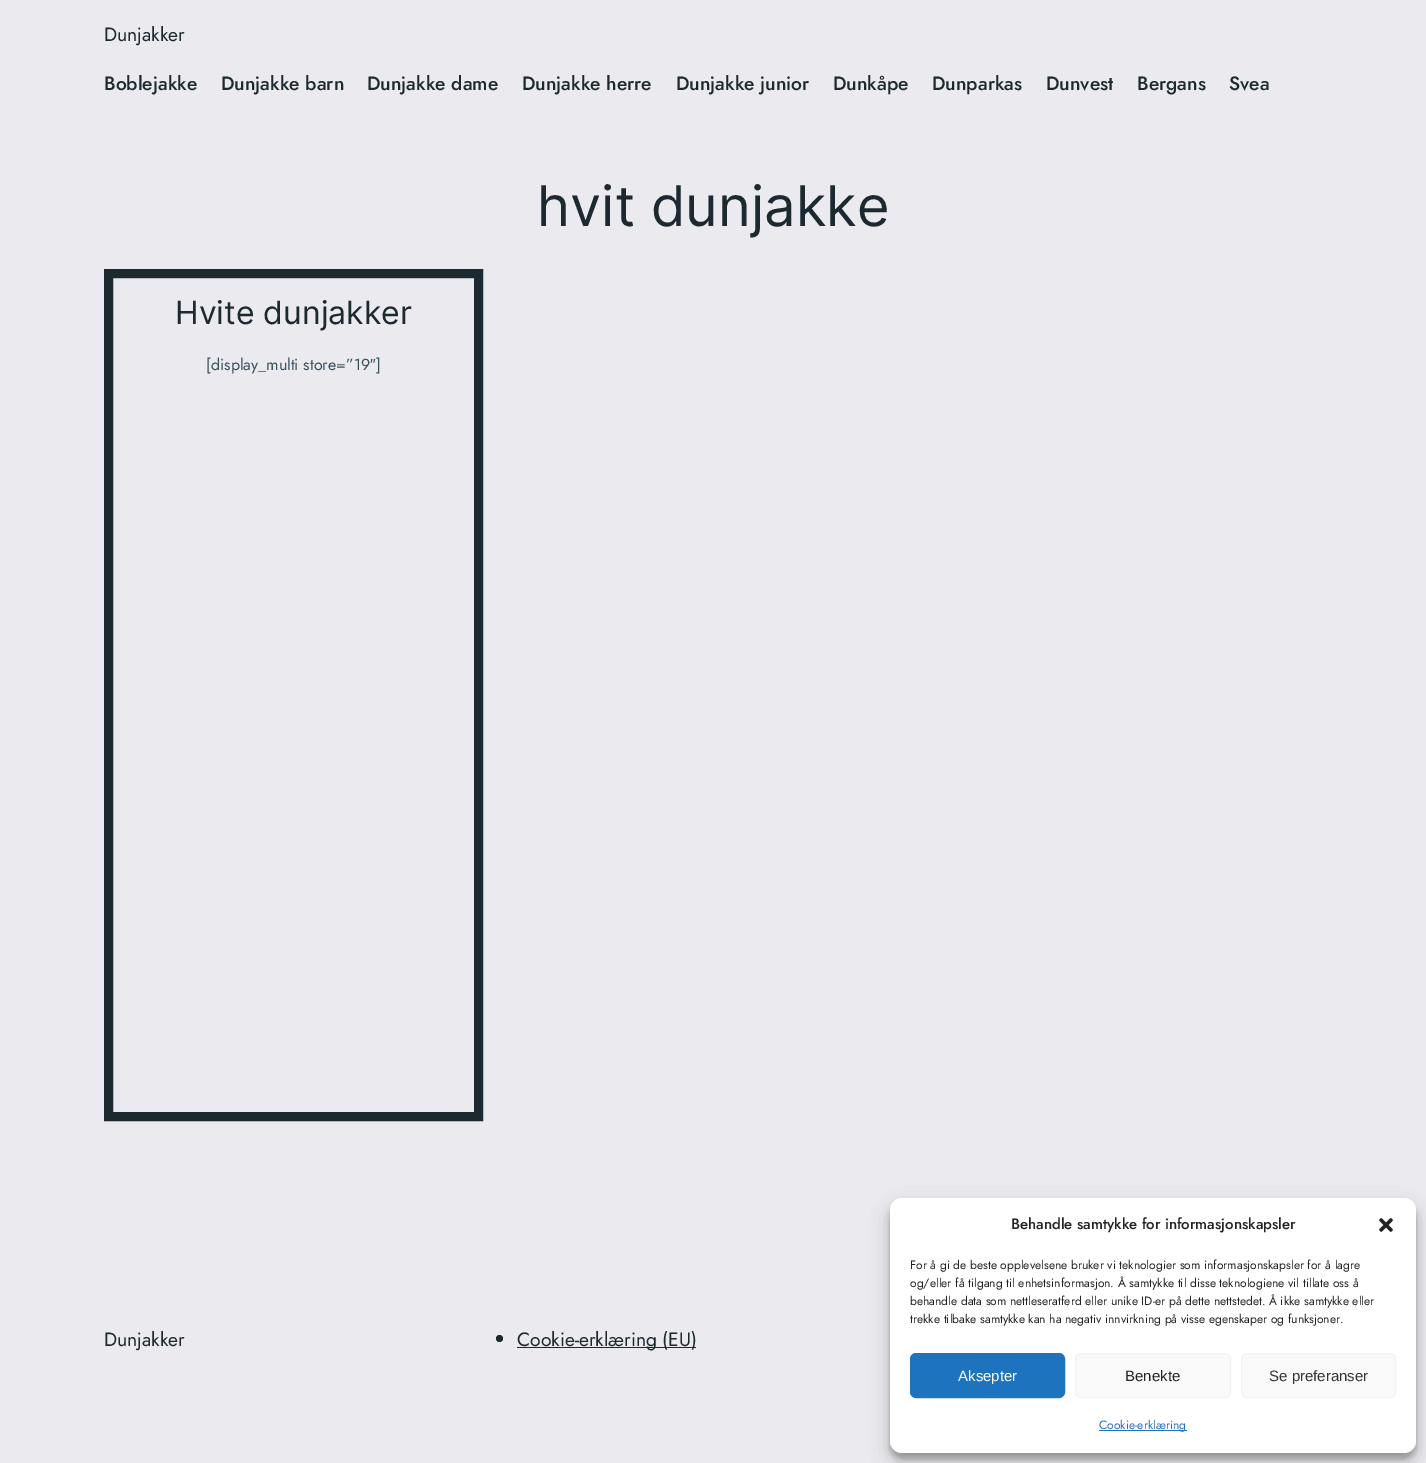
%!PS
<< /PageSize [1426 1463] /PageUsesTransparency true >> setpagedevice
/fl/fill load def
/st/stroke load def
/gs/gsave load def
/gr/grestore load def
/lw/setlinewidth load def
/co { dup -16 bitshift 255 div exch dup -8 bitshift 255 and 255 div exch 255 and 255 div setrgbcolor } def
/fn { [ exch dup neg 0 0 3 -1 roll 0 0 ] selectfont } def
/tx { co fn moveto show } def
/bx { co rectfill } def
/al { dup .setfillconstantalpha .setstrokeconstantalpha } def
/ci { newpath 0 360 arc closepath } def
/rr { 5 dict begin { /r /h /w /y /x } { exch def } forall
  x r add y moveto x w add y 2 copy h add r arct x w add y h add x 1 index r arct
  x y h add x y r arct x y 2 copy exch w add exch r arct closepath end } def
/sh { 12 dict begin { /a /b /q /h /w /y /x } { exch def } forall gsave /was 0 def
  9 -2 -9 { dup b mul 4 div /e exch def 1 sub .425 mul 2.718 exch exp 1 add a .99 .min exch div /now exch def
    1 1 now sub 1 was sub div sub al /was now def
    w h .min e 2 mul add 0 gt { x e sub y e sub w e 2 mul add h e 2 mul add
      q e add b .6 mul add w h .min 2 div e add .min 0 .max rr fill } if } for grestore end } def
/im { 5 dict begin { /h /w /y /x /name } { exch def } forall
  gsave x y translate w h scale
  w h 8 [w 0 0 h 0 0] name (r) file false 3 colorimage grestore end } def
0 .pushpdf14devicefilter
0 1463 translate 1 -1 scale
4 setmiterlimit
0 0 1426 1463 16#EBEBEF bx
16#1C2930 co
9 lw
108.5 273.5 370 843 rectstroke
499.5 1338.5 3.5 ci fl
517 1347 179 1 16#1C2930 bx
16#000000 co
890 1204 526 255 12 3 .23 sh
890 1208 526 255 12 10 .19 sh
16#FFFFFF co
890 1198 526 255 12 rr fl
(media/1.raw) 1379 1218 14 14 im
16#1E73BE co
910.5 1353.5 154 44 5.5 rr gs fl gr
1 lw
st
16#F9F9F9 co
1075.5 1353.5 155 44 5.5 rr gs fl gr
16#F2F2F2 co
st
16#F9F9F9 co
1241.5 1353.5 154 44 5.5 rr gs fl gr
16#F2F2F2 co
st
1099 1430 88 1 16#1E73BE bx
(Dunjakker) 104 41 /Jost-Regular 19.25 16#1C2930 tx
(Boblejakke) 104 90 /Jost-Medium 19.25 16#1C2930 tx
(Dunjakke barn) 221 90 /Jost-Medium 19.25 16#1C2930 tx
(Dunjakke dame) 367 90 /Jost-Medium 19.25 16#1C2930 tx
(Dunjakke herre) 522 90 /Jost-Medium 19.25 16#1C2930 tx
(Dunjakke junior) 676 90 /Jost-Medium 19.25 16#1C2930 tx
(Dunkåpe) 833 90 /Jost-Medium 19.25 16#1C2930 tx
(Dunparkas) 932 90 /Jost-Medium 19.25 16#1C2930 tx
(Dunvest) 1046 90 /Jost-Medium 19.25 16#1C2930 tx
(Bergans) 1137 90 /Jost-Medium 19.25 16#1C2930 tx
(Svea) 1229 90 /Jost-Medium 19.25 16#1C2930 tx
(hvit dunjakke) 537 226 /Inter-Regular 56 16#1C2930 tx
(Hvite dunjakker) 175 324 /Inter-Regular 32 16#1C2930 tx
([display_multi store=”19) 206 370 /Jost-Regular 16 16#37505D tx
(″) 370 370 /LiberationSans-Regular 16 16#37505D tx
(]) 376 370 /Jost-Regular 16 16#37505D tx
(Dunjakker) 104 1346 /Jost-Regular 19.25 16#1C2930 tx
(Cookie-erklæring \(EU\)) 517 1346 /Jost-Regular 19.25 16#1C2930 tx
(Behandle samtykke for informasjonskapsler) 1011 1229 /Jost-Medium 15 16#222222 tx
(For å gi de beste opplevelsene bruker vi teknologier som informasjonskapsler for å lagre) 910 1269 /Jost-Regular 12 16#222222 tx
(og/eller få tilgang til enhetsinformasjon. Å samtykke til disse teknologiene vil tillate oss å) 910 1287 /Jost-Regular 12 16#222222 tx
(behandle data som nettleseratferd eller unike ID-er på dette nettstedet. Å ikke samtykke eller) 910 1305 /Jost-Regular 12 16#222222 tx
(trekke tilbake samtykke kan ha negativ innvirkning på visse egenskaper og funksjoner.) 910 1323 /Jost-Regular 12 16#222222 tx
(Aksepter) 958 1381 /LiberationSans-Regular 15 16#FFFFFF tx
(Benekte) 1125 1381 /LiberationSans-Regular 15 16#222222 tx
(Se preferanser) 1269 1381 /LiberationSans-Regular 15 16#333333 tx
(Cookie-erklæring) 1099 1429 /Jost-Regular 12 16#1E73BE tx
.poppdf14devicefilter showpage
